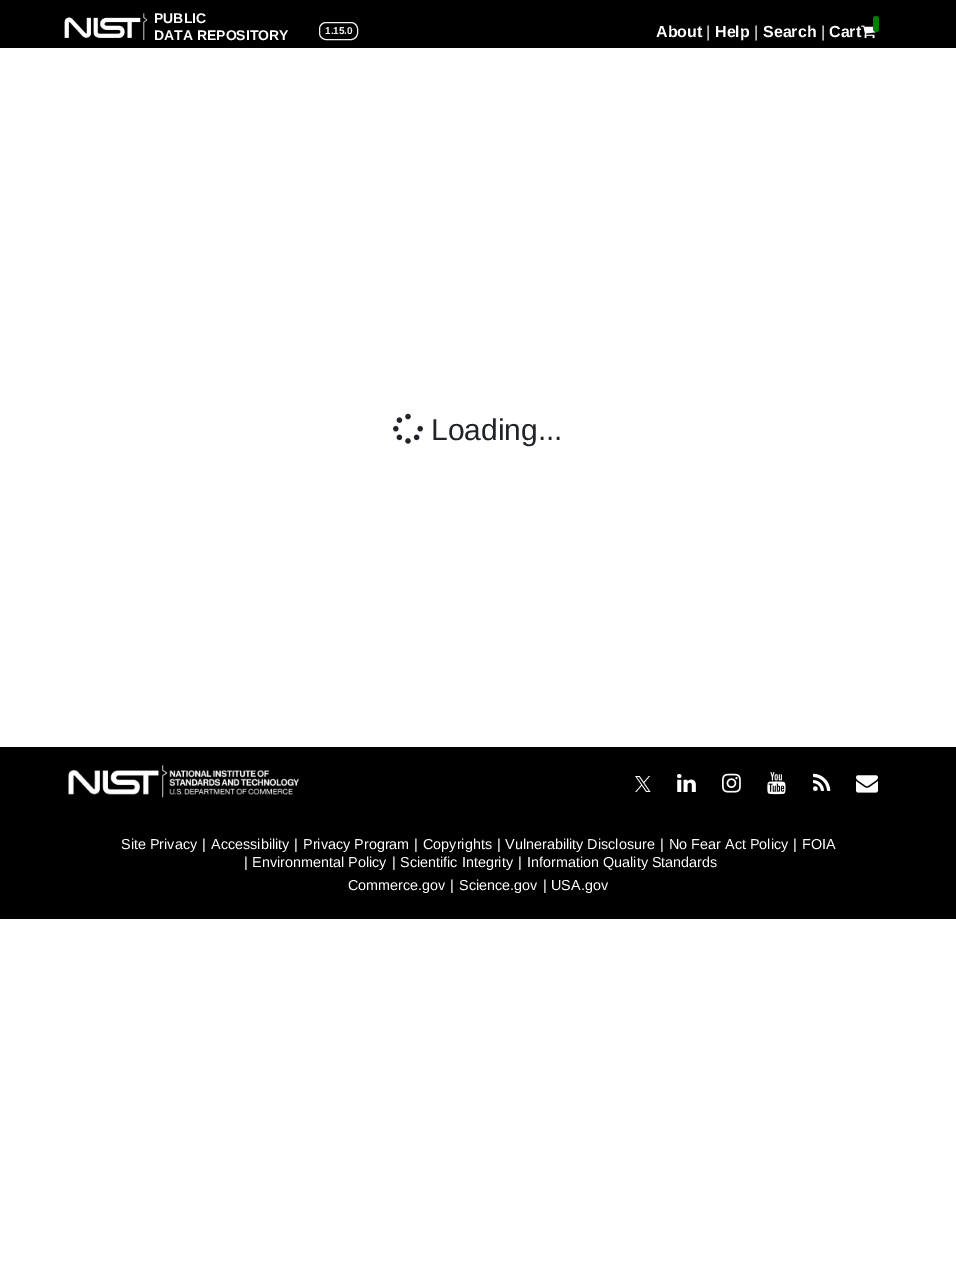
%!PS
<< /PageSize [956 1270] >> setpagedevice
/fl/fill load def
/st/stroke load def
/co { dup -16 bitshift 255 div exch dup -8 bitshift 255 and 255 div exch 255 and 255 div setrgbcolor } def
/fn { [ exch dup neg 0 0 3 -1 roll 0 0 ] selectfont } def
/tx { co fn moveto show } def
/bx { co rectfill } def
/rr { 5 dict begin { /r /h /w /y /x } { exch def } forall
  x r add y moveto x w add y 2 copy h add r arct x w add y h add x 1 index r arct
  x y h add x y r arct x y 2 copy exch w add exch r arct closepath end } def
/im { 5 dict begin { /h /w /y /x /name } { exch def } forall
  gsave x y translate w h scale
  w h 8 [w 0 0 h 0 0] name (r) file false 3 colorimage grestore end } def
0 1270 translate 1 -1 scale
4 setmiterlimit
0 0 956 1270 16#FFFFFF bx
0 0 956 48 16#000000 bx
(media/1.raw) 64 13 84 27 im
16#F0F0F0 co
319.5 22.5 38 17 6.5 rr st
(media/2.raw) 861 25 15 14 im
16#008000 co
873 16 6 16 3 rr fl
(media/3.raw) 393 413 30 31 im
0 747 956 172 16#000000 bx
(media/4.raw) 68 765 232 33 im
(media/5.raw) 635 776 16 16 im
(media/6.raw) 677 774 19 18 im
(media/7.raw) 722 773 19 20 im
(media/8.raw) 767 772 19 23 im
(media/9.raw) 813 773 18 18 im
(media/10.raw) 856 775 22 18 im
(PUBLIC) 154 23 /LiberationSans-Bold 14 16#FFFFFF tx
(DATA REPOSITORY) 154 40 /LiberationSans-Bold 14 16#FFFFFF tx
(1.15.0) 325 34 /LiberationSans-Bold 10 16#F0F0F0 tx
(About) 656 37 /LiberationSans-Bold 16 16#FFFFFF tx
(|) 706 37 /LiberationSans-Regular 16 16#FFFFFF tx
(Help) 715 37 /LiberationSans-Bold 16 16#FFFFFF tx
(|) 754 37 /LiberationSans-Regular 16 16#FFFFFF tx
(Search) 763 37 /LiberationSans-Bold 16 16#FFFFFF tx
(|) 821 37 /LiberationSans-Regular 16 16#FFFFFF tx
(Cart) 829 37 /LiberationSans-Bold 16 16#FFFFFF tx
(Loading...) 431 440 /LiberationSans-Regular 30 16#212529 tx
(Site Privacy) 121 849 /LiberationSans-Regular 14.4 16#FFFFFF tx
(|) 202 849 /LiberationSans-Regular 14.4 16#FFFFFF tx
(Accessibility) 211 849 /LiberationSans-Regular 14.4 16#FFFFFF tx
(|) 294 849 /LiberationSans-Regular 14.4 16#FFFFFF tx
(Privacy Program) 303 849 /LiberationSans-Regular 14.4 16#FFFFFF tx
(|) 414 849 /LiberationSans-Regular 14.4 16#FFFFFF tx
(Copyrights) 423 849 /LiberationSans-Regular 14.4 16#FFFFFF tx
(|) 497 849 /LiberationSans-Regular 14.4 16#FFFFFF tx
(Vulnerability Disclosure) 505 849 /LiberationSans-Regular 14.4 16#FFFFFF tx
(|) 660 849 /LiberationSans-Regular 14.4 16#FFFFFF tx
(No Fear Act Policy) 669 849 /LiberationSans-Regular 14.4 16#FFFFFF tx
(|) 793 849 /LiberationSans-Regular 14.4 16#FFFFFF tx
(FOIA) 802 849 /LiberationSans-Regular 14.4 16#FFFFFF tx
(|) 244 867 /LiberationSans-Regular 14.4 16#FFFFFF tx
(Environmental Policy) 252 867 /LiberationSans-Regular 14.4 16#FFFFFF tx
(|) 392 867 /LiberationSans-Regular 14.4 16#FFFFFF tx
(Scientific Integrity) 400 867 /LiberationSans-Regular 14.4 16#FFFFFF tx
(|) 518 867 /LiberationSans-Regular 14.4 16#FFFFFF tx
(Information Quality Standards) 527 867 /LiberationSans-Regular 14.4 16#FFFFFF tx
(Commerce.gov) 348 890 /LiberationSans-Regular 14.4 16#FFFFFF tx
(|) 450 890 /LiberationSans-Regular 14.4 16#FFFFFF tx
(Science.gov) 459 890 /LiberationSans-Regular 14.4 16#FFFFFF tx
(|) 543 890 /LiberationSans-Regular 14.4 16#FFFFFF tx
(USA.gov) 551 890 /LiberationSans-Regular 14.4 16#FFFFFF tx
showpage
